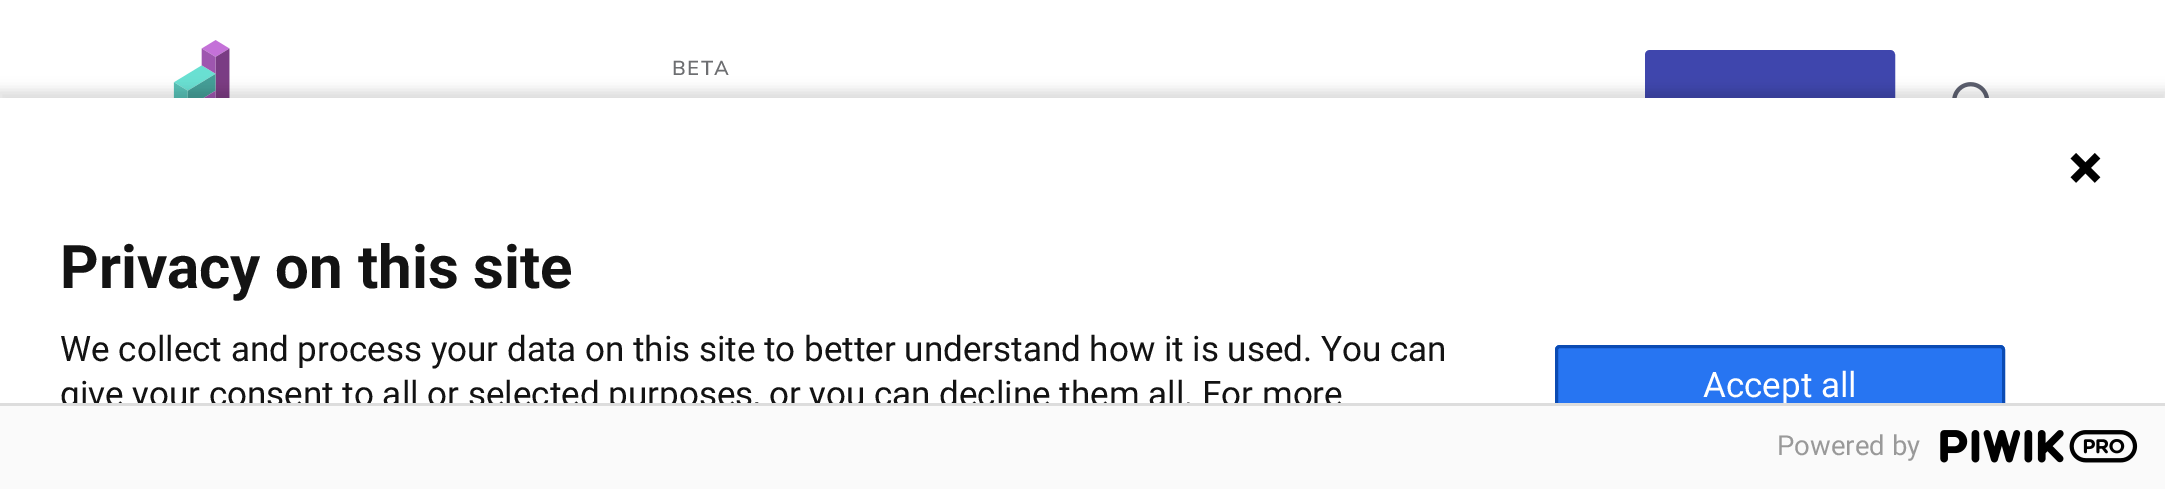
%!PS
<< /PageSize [2165 489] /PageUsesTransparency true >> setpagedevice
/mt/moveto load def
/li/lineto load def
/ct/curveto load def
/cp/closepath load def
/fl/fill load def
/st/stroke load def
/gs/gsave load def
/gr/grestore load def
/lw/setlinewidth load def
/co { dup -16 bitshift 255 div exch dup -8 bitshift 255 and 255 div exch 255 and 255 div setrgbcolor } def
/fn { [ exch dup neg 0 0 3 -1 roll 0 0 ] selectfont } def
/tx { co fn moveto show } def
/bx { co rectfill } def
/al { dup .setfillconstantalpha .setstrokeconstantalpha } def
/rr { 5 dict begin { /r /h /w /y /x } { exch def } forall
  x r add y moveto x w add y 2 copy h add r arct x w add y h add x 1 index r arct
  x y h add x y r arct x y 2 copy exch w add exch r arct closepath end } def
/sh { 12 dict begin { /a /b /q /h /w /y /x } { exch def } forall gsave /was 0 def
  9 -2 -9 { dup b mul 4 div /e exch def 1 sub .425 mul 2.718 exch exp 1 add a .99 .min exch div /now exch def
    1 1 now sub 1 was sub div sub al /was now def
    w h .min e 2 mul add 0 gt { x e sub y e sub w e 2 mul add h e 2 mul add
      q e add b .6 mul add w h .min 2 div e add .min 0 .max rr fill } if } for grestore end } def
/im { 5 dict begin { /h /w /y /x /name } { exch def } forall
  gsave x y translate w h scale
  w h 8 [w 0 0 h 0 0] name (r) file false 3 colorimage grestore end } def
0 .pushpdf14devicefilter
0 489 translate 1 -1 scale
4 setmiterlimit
0 0 2165 489 16#FFFFFF bx
(media/1.raw) 173 40 57 58 im
16#3F46AD co
1646.5 51.5 247 97 3.5 rr gs fl gr
3 lw
st
(media/2.raw) 1952 82 37 16 im
16#000000 co
-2 90 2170 398 0 6 .14 sh
0 98 2165 305 16#FFFFFF bx
(media/3.raw) 2070 153 31 30 im
16#2775F2 co
1560 345 mt 2000 345 li 2003 345 2005 347 2005 350 ct 2005 403 li 1555 403 li 1555 350 li 1555 347 1557 345 1560 345 ct cp fl
0 406 2165 83 16#FAFAFA bx
0 403 2165 3 16#DDDDDD bx
gs
0 223 2165 180 rectclip
16#0B4BB3 co
1556.5 346.5 447 80 3.5 rr st
gr
(media/4.raw) 1940 430 198 33 im
/Muli-SemiBold 20 fn
16#6D6E71 co
672 75 mt 1.5 0 (BETA) ashow
(Privacy on this site) 60 288 /Roboto-Bold 60 16#131313 tx
(We collect and process your data on this site to better understand how it is used. You can) 60 361 /Roboto-Regular 35 16#131313 tx
gs
0 223 2165 180 rectclip
(give your consent to all or selected purposes, or you can decline them all. For more) 60 406 /Roboto-Regular 35 16#131313 tx
(Accept all) 1703 397 /Roboto-Regular 35 16#FFFFFF tx
gr
(Powered by) 1777 455 /Roboto-Regular 27.5 16#999999 tx
.poppdf14devicefilter showpage
